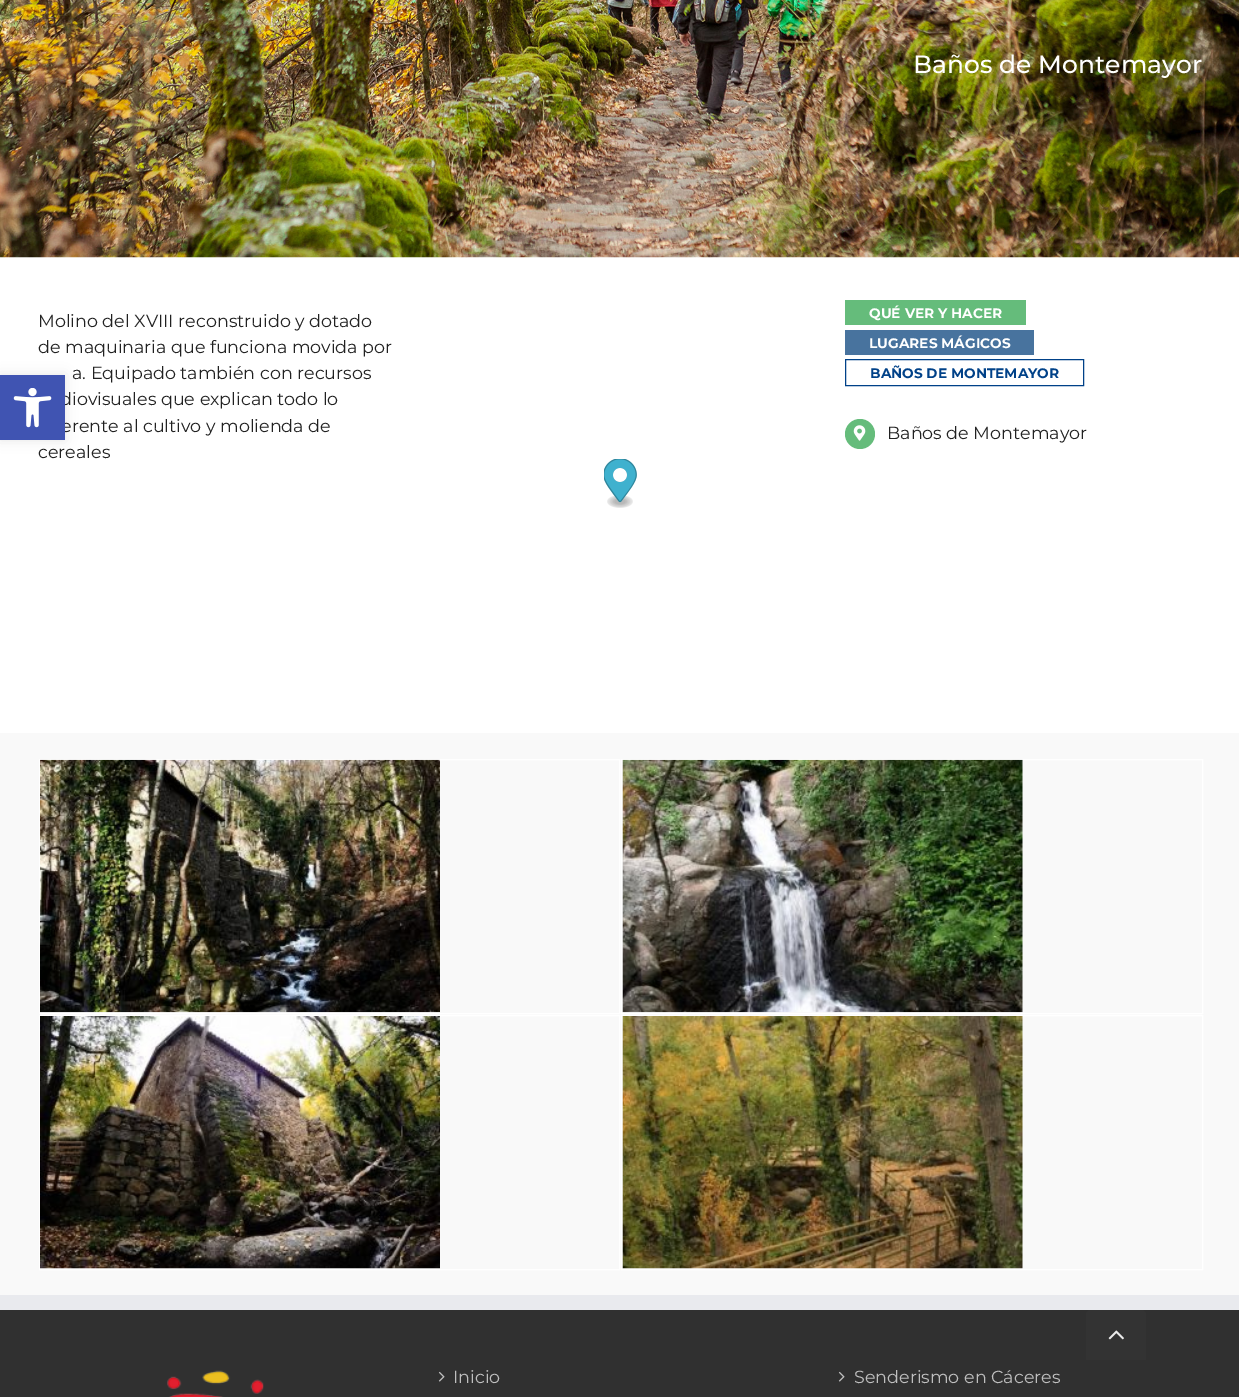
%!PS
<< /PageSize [1239 1397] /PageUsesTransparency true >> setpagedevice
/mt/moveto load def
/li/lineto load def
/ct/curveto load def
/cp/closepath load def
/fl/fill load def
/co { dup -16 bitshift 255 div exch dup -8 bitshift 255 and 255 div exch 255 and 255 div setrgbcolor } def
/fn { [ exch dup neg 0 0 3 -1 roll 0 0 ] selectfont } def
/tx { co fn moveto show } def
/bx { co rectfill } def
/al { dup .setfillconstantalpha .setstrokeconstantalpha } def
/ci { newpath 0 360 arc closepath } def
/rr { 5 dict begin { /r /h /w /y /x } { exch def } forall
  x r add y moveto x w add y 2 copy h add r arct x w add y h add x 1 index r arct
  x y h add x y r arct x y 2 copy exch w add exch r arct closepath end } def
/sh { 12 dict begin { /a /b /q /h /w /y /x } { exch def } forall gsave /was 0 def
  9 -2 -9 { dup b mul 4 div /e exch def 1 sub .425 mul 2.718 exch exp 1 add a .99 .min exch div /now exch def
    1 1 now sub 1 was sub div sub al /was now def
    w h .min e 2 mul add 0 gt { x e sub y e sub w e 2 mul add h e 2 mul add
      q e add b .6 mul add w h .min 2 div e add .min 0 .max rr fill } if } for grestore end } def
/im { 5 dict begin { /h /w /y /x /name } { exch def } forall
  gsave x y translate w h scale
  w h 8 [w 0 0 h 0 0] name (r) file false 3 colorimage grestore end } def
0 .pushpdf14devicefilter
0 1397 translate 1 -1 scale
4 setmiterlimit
0 0 1239 1397 16#FFFFFF bx
(media/1.raw) 0 0 1239 258 im
845 300 181 25 16#65BC7B bx
845 330 189 25 16#48739E bx
16#004188 co
845.5 359.5 238 26 rectstroke
16#65BC7B co
860 434 15 ci fl
(media/2.raw) 853 425 13 16 im
(media/3.raw) 604 459 33 49 im
0 733 1239 562 16#F9F9F9 bx
16#FFFFFF co
39.5 759.5 580 254 rectstroke
(media/4.raw) 40 759 400 254 im
621.5 759.5 581 254 rectstroke
(media/5.raw) 622 759 401 254 im
39.5 1015.5 580 254 rectstroke
(media/6.raw) 40 1016 400 253 im
621.5 1015.5 581 254 rectstroke
(media/7.raw) 622 1016 401 253 im
0 1310 1239 87 16#303030 bx
0 1295 1239 15 16#E9EAEE bx
(media/8.raw) 167 1370 97 27 im
(media/9.raw) 438 1371 7 11 im
(media/9.raw) 838 1371 7 11 im
16#000000 co
0 375 65 65 0 6 .1 sh
16#333333 co
1091 1310 mt 1141 1310 li 1144 1310 1146 1312 1146 1315 ct 1146 1360 li 1086 1360 li 1086 1315 li 1086 1312 1088 1310 1091 1310 ct cp fl
(media/11.raw) 1108 1330 16 10 im
(Baños de Montemayor) 913 73 /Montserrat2-Thin 25 16#FFFFFF tx
(Molino del XVIII reconstruido y dotado) 38 327 /Montserrat-Thin 17.5 16#212121 tx
(de maquinaria que funciona movida por) 38 353 /Montserrat-Thin 17.5 16#212121 tx
(a. Equipado también con recursos) 72 379 /Montserrat-Thin 17.5 16#212121 tx
(diovisuales que explican todo lo) 60 405 /Montserrat-Thin 17.5 16#212121 tx
(erente al cultivo y molienda de) 61 432 /Montserrat-Thin 17.5 16#212121 tx
(cereales) 38 458 /Montserrat-Thin 17.5 16#212121 tx
(QUÉ VER Y HACER) 869 318 /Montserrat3-Thin 13.75 16#FFFFFF tx
(LUGARES MÁGICOS) 869 348 /Montserrat3-Thin 13.75 16#FFFFFF tx
(BAÑOS DE MONTEMAYOR) 870 378 /Montserrat3-Thin 13.75 16#004188 tx
(Baños de Montemayor) 887 439 /Montserrat-Thin 17.5 16#212121 tx
(Inicio) 453 1383 /Montserrat-Thin 17.5 16#BFBFBF tx
(Senderismo en Cáceres) 854 1383 /Montserrat-Thin 17.5 16#BFBFBF tx
0 375 65 65 16#4054B2 bx
(media/10.raw) 13 388 39 40 im
.poppdf14devicefilter showpage
